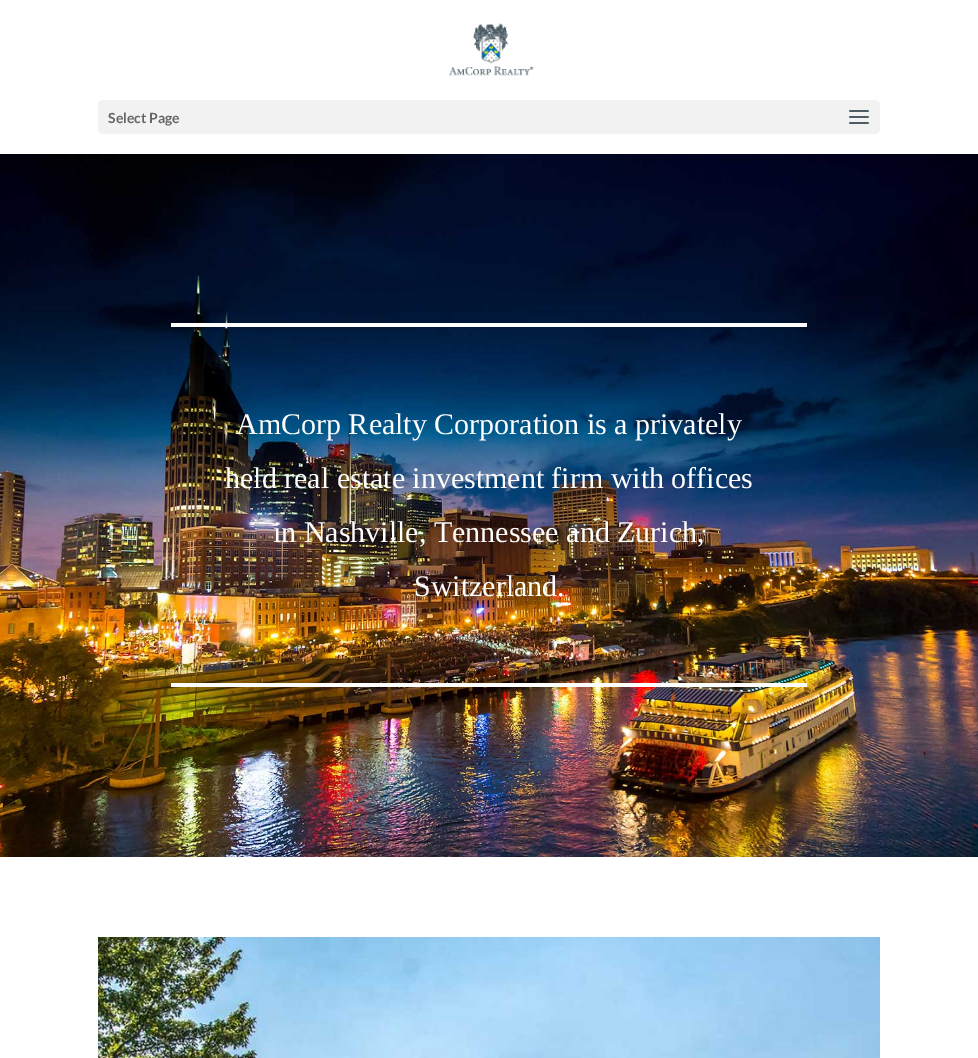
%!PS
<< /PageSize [978 1058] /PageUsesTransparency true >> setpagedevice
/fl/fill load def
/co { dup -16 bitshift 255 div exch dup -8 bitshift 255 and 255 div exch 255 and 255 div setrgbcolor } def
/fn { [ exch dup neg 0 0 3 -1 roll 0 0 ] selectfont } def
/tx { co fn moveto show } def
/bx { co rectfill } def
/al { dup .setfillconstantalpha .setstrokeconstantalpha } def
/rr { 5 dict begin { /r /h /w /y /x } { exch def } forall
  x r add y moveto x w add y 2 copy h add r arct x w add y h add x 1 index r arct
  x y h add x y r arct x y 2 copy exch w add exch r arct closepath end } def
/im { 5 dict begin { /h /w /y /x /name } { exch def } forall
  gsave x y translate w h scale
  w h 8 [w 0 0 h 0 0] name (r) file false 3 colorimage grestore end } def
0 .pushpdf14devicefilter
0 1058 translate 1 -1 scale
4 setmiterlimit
0 0 978 1058 16#FFFFFF bx
(media/3.raw) 0 154 978 703 im
0.1 al
436 154 491 1 16#000000 bx
1 al
(media/1.raw) 449 23 85 53 im
16#F2F2F2 co
98 100 782 34 5 rr fl
(media/2.raw) 849 110 20 14 im
171 323 636 4 16#FFFFFF bx
171 683 636 4 16#FFFFFF bx
(media/4.raw) 98 937 782 121 im
(Select Page) 108 123 /Lato-Bold 14 16#666666 tx
(AmCorp Realty Corporation is a privately) 236 434 /LiberationSerif-Regular 30 16#FFFFFF tx
(held real estate investment firm with offices) 225 488 /LiberationSerif-Regular 30 16#FFFFFF tx
(in Nashville, Tennessee and Zurich,) 273 542 /LiberationSerif-Regular 30 16#FFFFFF tx
(Switzerland.) 414 596 /LiberationSerif-Regular 30 16#FFFFFF tx
.poppdf14devicefilter showpage
